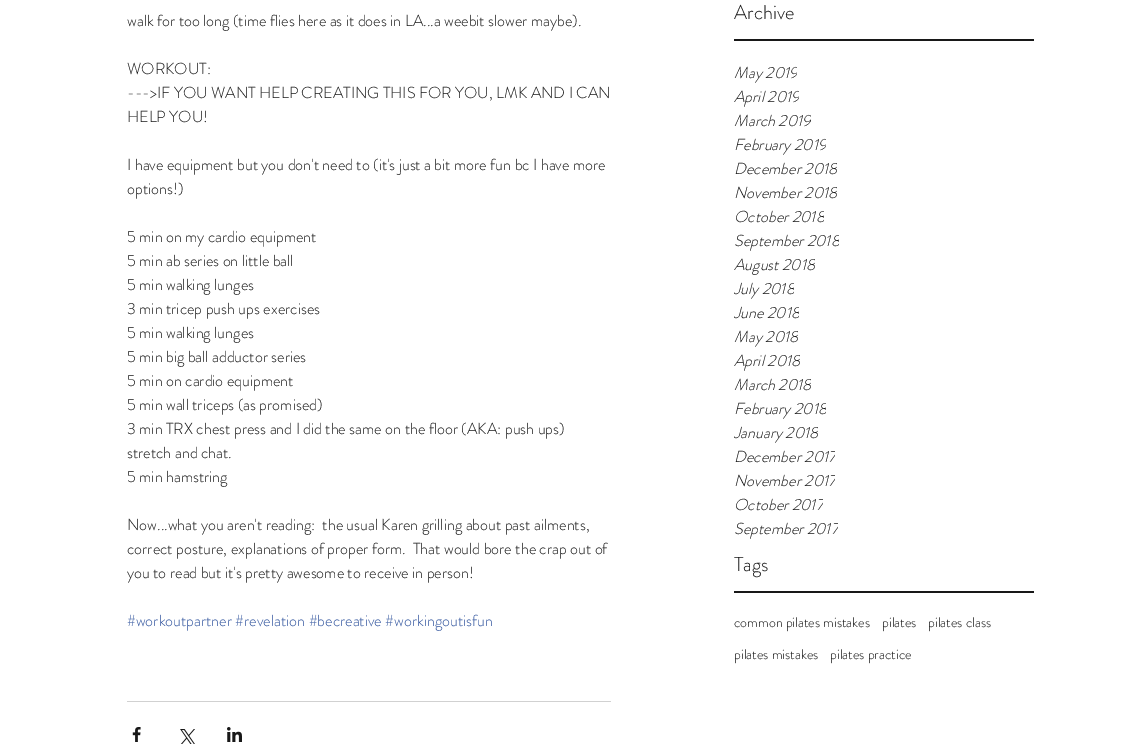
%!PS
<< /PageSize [1127 746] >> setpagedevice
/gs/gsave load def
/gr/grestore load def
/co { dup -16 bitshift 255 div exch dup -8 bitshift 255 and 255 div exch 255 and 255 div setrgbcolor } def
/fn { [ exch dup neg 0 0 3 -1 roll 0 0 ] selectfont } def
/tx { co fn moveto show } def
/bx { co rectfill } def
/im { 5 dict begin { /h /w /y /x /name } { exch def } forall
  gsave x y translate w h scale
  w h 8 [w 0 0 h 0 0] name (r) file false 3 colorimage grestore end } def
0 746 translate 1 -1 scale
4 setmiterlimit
0 0 1127 746 16#FFFFFF bx
127 701 484 1 16#D1D1D1 bx
(media/1.raw) 132 727 9 15 im
(media/2.raw) 180 729 15 15 im
(media/3.raw) 227 727 15 15 im
734 39 300 2 16#181818 bx
734 591 300 2 16#181818 bx
(walk for too long \(time flies here as it does in LA...a weebit slower maybe\).) 127 26 /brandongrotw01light-Light 16 16#181818 tx
(WORKOUT:) 127 74 /brandongrotw01light-Light 16 16#181818 tx
(--->IF YOU WANT HELP CREATING THIS FOR YOU, LMK AND I CAN) 127 98 /brandongrotw01light-Light 16 16#181818 tx
(HELP YOU!) 127 122 /brandongrotw01light-Light 16 16#181818 tx
(I have equipment but you don't need to \(it's just a bit more fun bc I have more) 127 170 /brandongrotw01light-Light 16 16#181818 tx
(options!\)) 127 194 /brandongrotw01light-Light 16 16#181818 tx
(5 min on my cardio equipment) 127 242 /brandongrotw01light-Light 16 16#181818 tx
(5 min ab series on little ball) 127 266 /brandongrotw01light-Light 16 16#181818 tx
(5 min walking lunges) 127 290 /brandongrotw01light-Light 16 16#181818 tx
(3 min tricep push ups exercises) 127 314 /brandongrotw01light-Light 16 16#181818 tx
(5 min walking lunges) 127 338 /brandongrotw01light-Light 16 16#181818 tx
(5 min big ball adductor series) 127 362 /brandongrotw01light-Light 16 16#181818 tx
(5 min on cardio equipment) 127 386 /brandongrotw01light-Light 16 16#181818 tx
(5 min wall triceps \(as promised\)) 127 410 /brandongrotw01light-Light 16 16#181818 tx
(3 min TRX chest press and I did the same on the floor \(AKA: push ups\)) 127 434 /brandongrotw01light-Light 16 16#181818 tx
(stretch and chat.) 127 458 /brandongrotw01light-Light 16 16#181818 tx
(5 min hamstring) 127 482 /brandongrotw01light-Light 16 16#181818 tx
(Now...what you aren't reading:  the usual Karen grilling about past ailments,) 127 530 /brandongrotw01light-Light 16 16#181818 tx
(correct posture, explanations of proper form.  That would bore the crap out of) 127 554 /brandongrotw01light-Light 16 16#181818 tx
(you to read but it's pretty awesome to receive in person!) 127 578 /brandongrotw01light-Light 16 16#181818 tx
(#workoutpartner #revelation #becreative #workingoutisfun) 127 626 /brandongrotw01light-Light 16 16#33569F tx
(Archive) 734 19 /brandongrotw01light-Light 20 16#181818 tx
gs
734 61 63 24 rectclip
(May 2019) 734 78 /brandongrotw01light-LightItalic 16 16#181818 tx
gr
gs
734 85 65 24 rectclip
(April 2019) 734 102 /brandongrotw01light-LightItalic 16 16#181818 tx
gr
gs
734 109 77 24 rectclip
(March 2019) 734 126 /brandongrotw01light-LightItalic 16 16#181818 tx
gr
gs
734 133 92 24 rectclip
(February 2019) 734 150 /brandongrotw01light-LightItalic 16 16#181818 tx
gr
gs
734 157 103 24 rectclip
(December 2018) 734 174 /brandongrotw01light-LightItalic 16 16#181818 tx
gr
gs
734 181 103 24 rectclip
(November 2018) 734 198 /brandongrotw01light-LightItalic 16 16#181818 tx
gr
gs
734 205 90 24 rectclip
(October 2018) 734 222 /brandongrotw01light-LightItalic 16 16#181818 tx
gr
gs
734 229 105 24 rectclip
(September 2018) 734 246 /brandongrotw01light-LightItalic 16 16#181818 tx
gr
gs
734 253 81 24 rectclip
(August 2018) 734 270 /brandongrotw01light-LightItalic 16 16#181818 tx
gr
gs
734 277 60 24 rectclip
(July 2018) 734 294 /brandongrotw01light-LightItalic 16 16#181818 tx
gr
gs
734 301 65 24 rectclip
(June 2018) 734 318 /brandongrotw01light-LightItalic 16 16#181818 tx
gr
gs
734 325 64 24 rectclip
(May 2018) 734 342 /brandongrotw01light-LightItalic 16 16#181818 tx
gr
gs
734 349 66 24 rectclip
(April 2018) 734 366 /brandongrotw01light-LightItalic 16 16#181818 tx
gr
gs
734 373 77 24 rectclip
(March 2018) 734 390 /brandongrotw01light-LightItalic 16 16#181818 tx
gr
gs
734 397 92 24 rectclip
(February 2018) 734 414 /brandongrotw01light-LightItalic 16 16#181818 tx
gr
gs
734 421 84 24 rectclip
(January 2018) 734 438 /brandongrotw01light-LightItalic 16 16#181818 tx
gr
gs
734 445 101 24 rectclip
(December 2017) 734 462 /brandongrotw01light-LightItalic 16 16#181818 tx
gr
gs
734 469 101 24 rectclip
(November 2017) 734 486 /brandongrotw01light-LightItalic 16 16#181818 tx
gr
gs
734 493 89 24 rectclip
(October 2017) 734 510 /brandongrotw01light-LightItalic 16 16#181818 tx
gr
gs
734 517 104 24 rectclip
(September 2017) 734 534 /brandongrotw01light-LightItalic 16 16#181818 tx
gr
(Tags) 734 571 /brandongrotw01light-Light 20 16#181818 tx
(common pilates mistakes) 734 627 /brandongrotw01light-Light 14 16#181818 tx
(pilates) 882 627 /brandongrotw01light-Light 14 16#181818 tx
(pilates class) 928 627 /brandongrotw01light-Light 14 16#181818 tx
(pilates mistakes) 734 659 /brandongrotw01light-Light 14 16#181818 tx
(pilates practice) 830 659 /brandongrotw01light-Light 14 16#181818 tx
showpage
